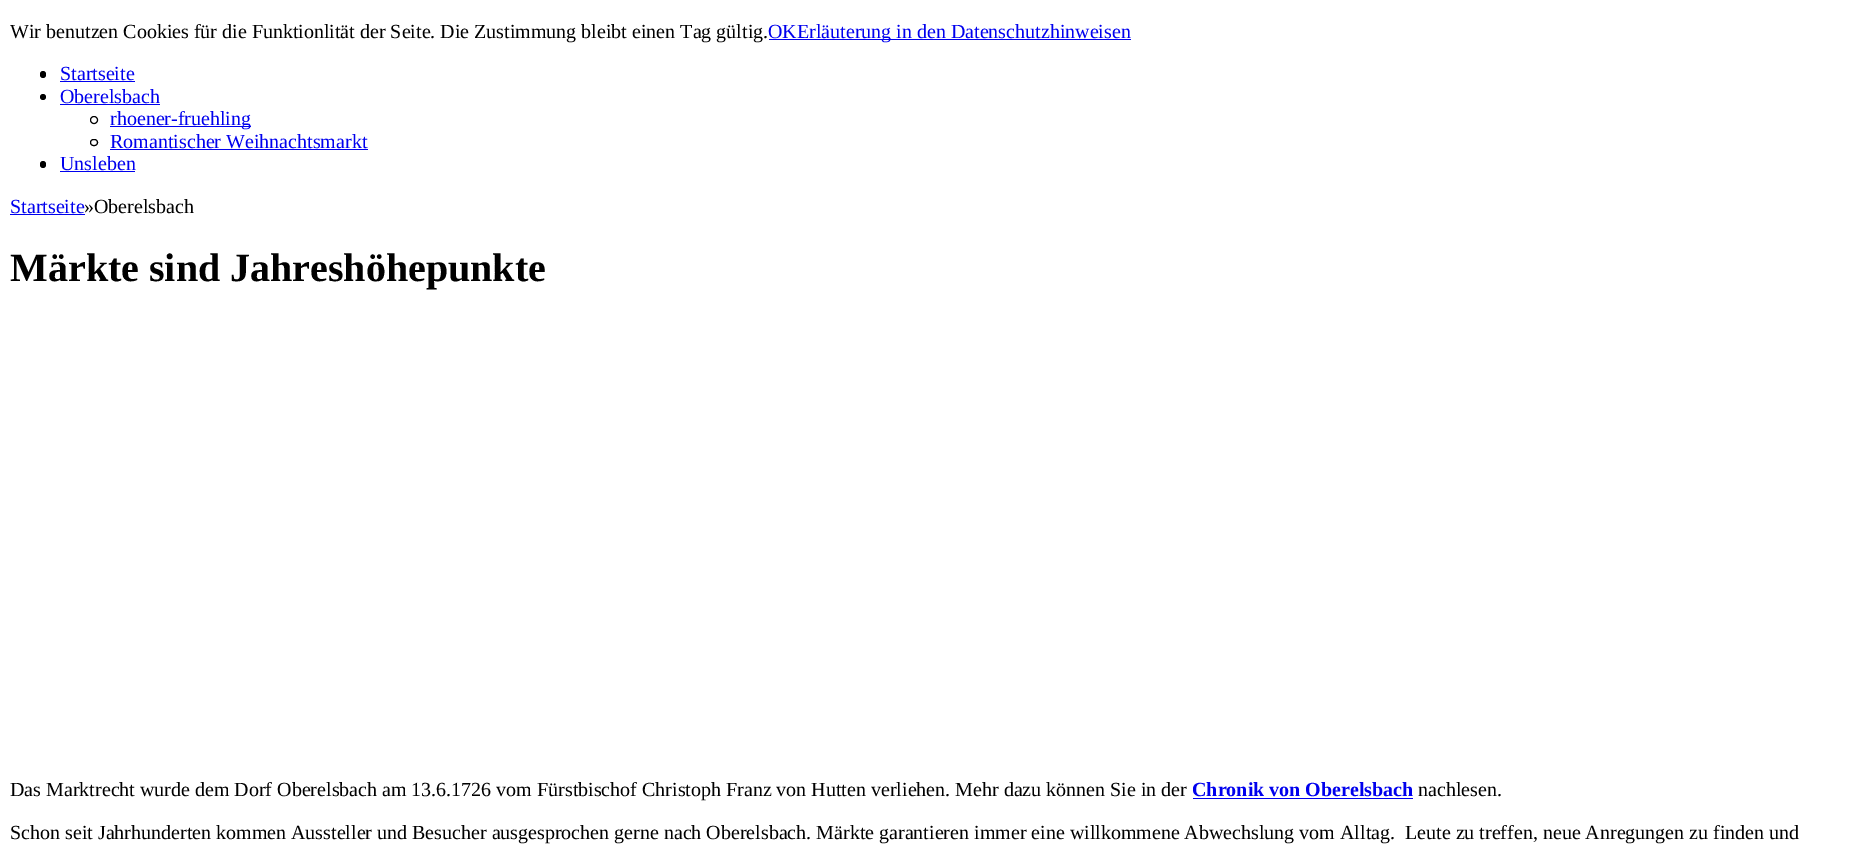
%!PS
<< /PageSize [1876 855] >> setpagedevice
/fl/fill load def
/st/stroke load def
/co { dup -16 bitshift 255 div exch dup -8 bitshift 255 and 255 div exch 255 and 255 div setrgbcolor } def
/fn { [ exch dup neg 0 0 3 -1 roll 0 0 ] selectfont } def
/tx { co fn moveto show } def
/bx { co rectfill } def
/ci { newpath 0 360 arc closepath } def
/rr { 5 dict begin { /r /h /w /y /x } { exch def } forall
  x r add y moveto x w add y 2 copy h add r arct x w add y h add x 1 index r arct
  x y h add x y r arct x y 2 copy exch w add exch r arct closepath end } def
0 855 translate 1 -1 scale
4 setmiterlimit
0 0 1876 855 16#FFFFFF bx
769 39 362 1 16#0000EE bx
16#000000 co
40 71 6 7 3 rr fl
60 81 75 1 16#0000EE bx
16#000000 co
43 97 3 ci fl
60 104 100 1 16#0000EE bx
16#000000 co
94 120 3.5 ci st
110 126 141 1 16#0000EE bx
16#000000 co
90.5 139.5 7 6 3 rr st
110 149 258 1 16#0000EE bx
16#000000 co
40 161 6 7 3 rr fl
60 171 75 1 16#0000EE bx
10 214 75 1 16#0000EE bx
1193 798 220 1 16#0000EE bx
(Wir benutzen Cookies für die Funktionlität der Seite. Die Zustimmung bleibt einen Tag gültig.) 10 38 /LiberationSerif-Regular 20 16#000000 tx
(OKErläuterung in den Datenschutzhinweisen) 768 38 /LiberationSerif-Regular 20 16#0000EE tx
(Startseite) 60 80 /LiberationSerif-Regular 20 16#0000EE tx
(Oberelsbach) 60 103 /LiberationSerif-Regular 20 16#0000EE tx
(rhoener-fruehling) 110 125 /LiberationSerif-Regular 20 16#0000EE tx
(Romantischer Weihnachtsmarkt) 110 148 /LiberationSerif-Regular 20 16#0000EE tx
(Unsleben) 60 170 /LiberationSerif-Regular 20 16#0000EE tx
(Startseite) 10 213 /LiberationSerif-Regular 20 16#0000EE tx
(»Oberelsbach) 84 213 /LiberationSerif-Regular 20 16#000000 tx
(Märkte sind Jahreshöhepunkte) 10 281 /LiberationSerif-Bold 40 16#000000 tx
(Das Marktrecht wurde dem Dorf Oberelsbach am 13.6.1726 vom Fürstbischof Christoph Franz von Hutten verliehen. Mehr dazu können Sie in der) 10 796 /LiberationSerif-Regular 20 16#000000 tx
(Chronik von Oberelsbach) 1192 796 /LiberationSerif-Bold 20 16#0000EE tx
(nachlesen.) 1418 796 /LiberationSerif-Regular 20 16#000000 tx
(Schon seit Jahrhunderten kommen Aussteller und Besucher ausgesprochen gerne nach Oberelsbach. Märkte garantieren immer eine willkommene Abwechslung vom Alltag.  Leute zu treffen, neue Anregungen zu finden und) 10 839 /LiberationSerif-Regular 20 16#000000 tx
showpage
